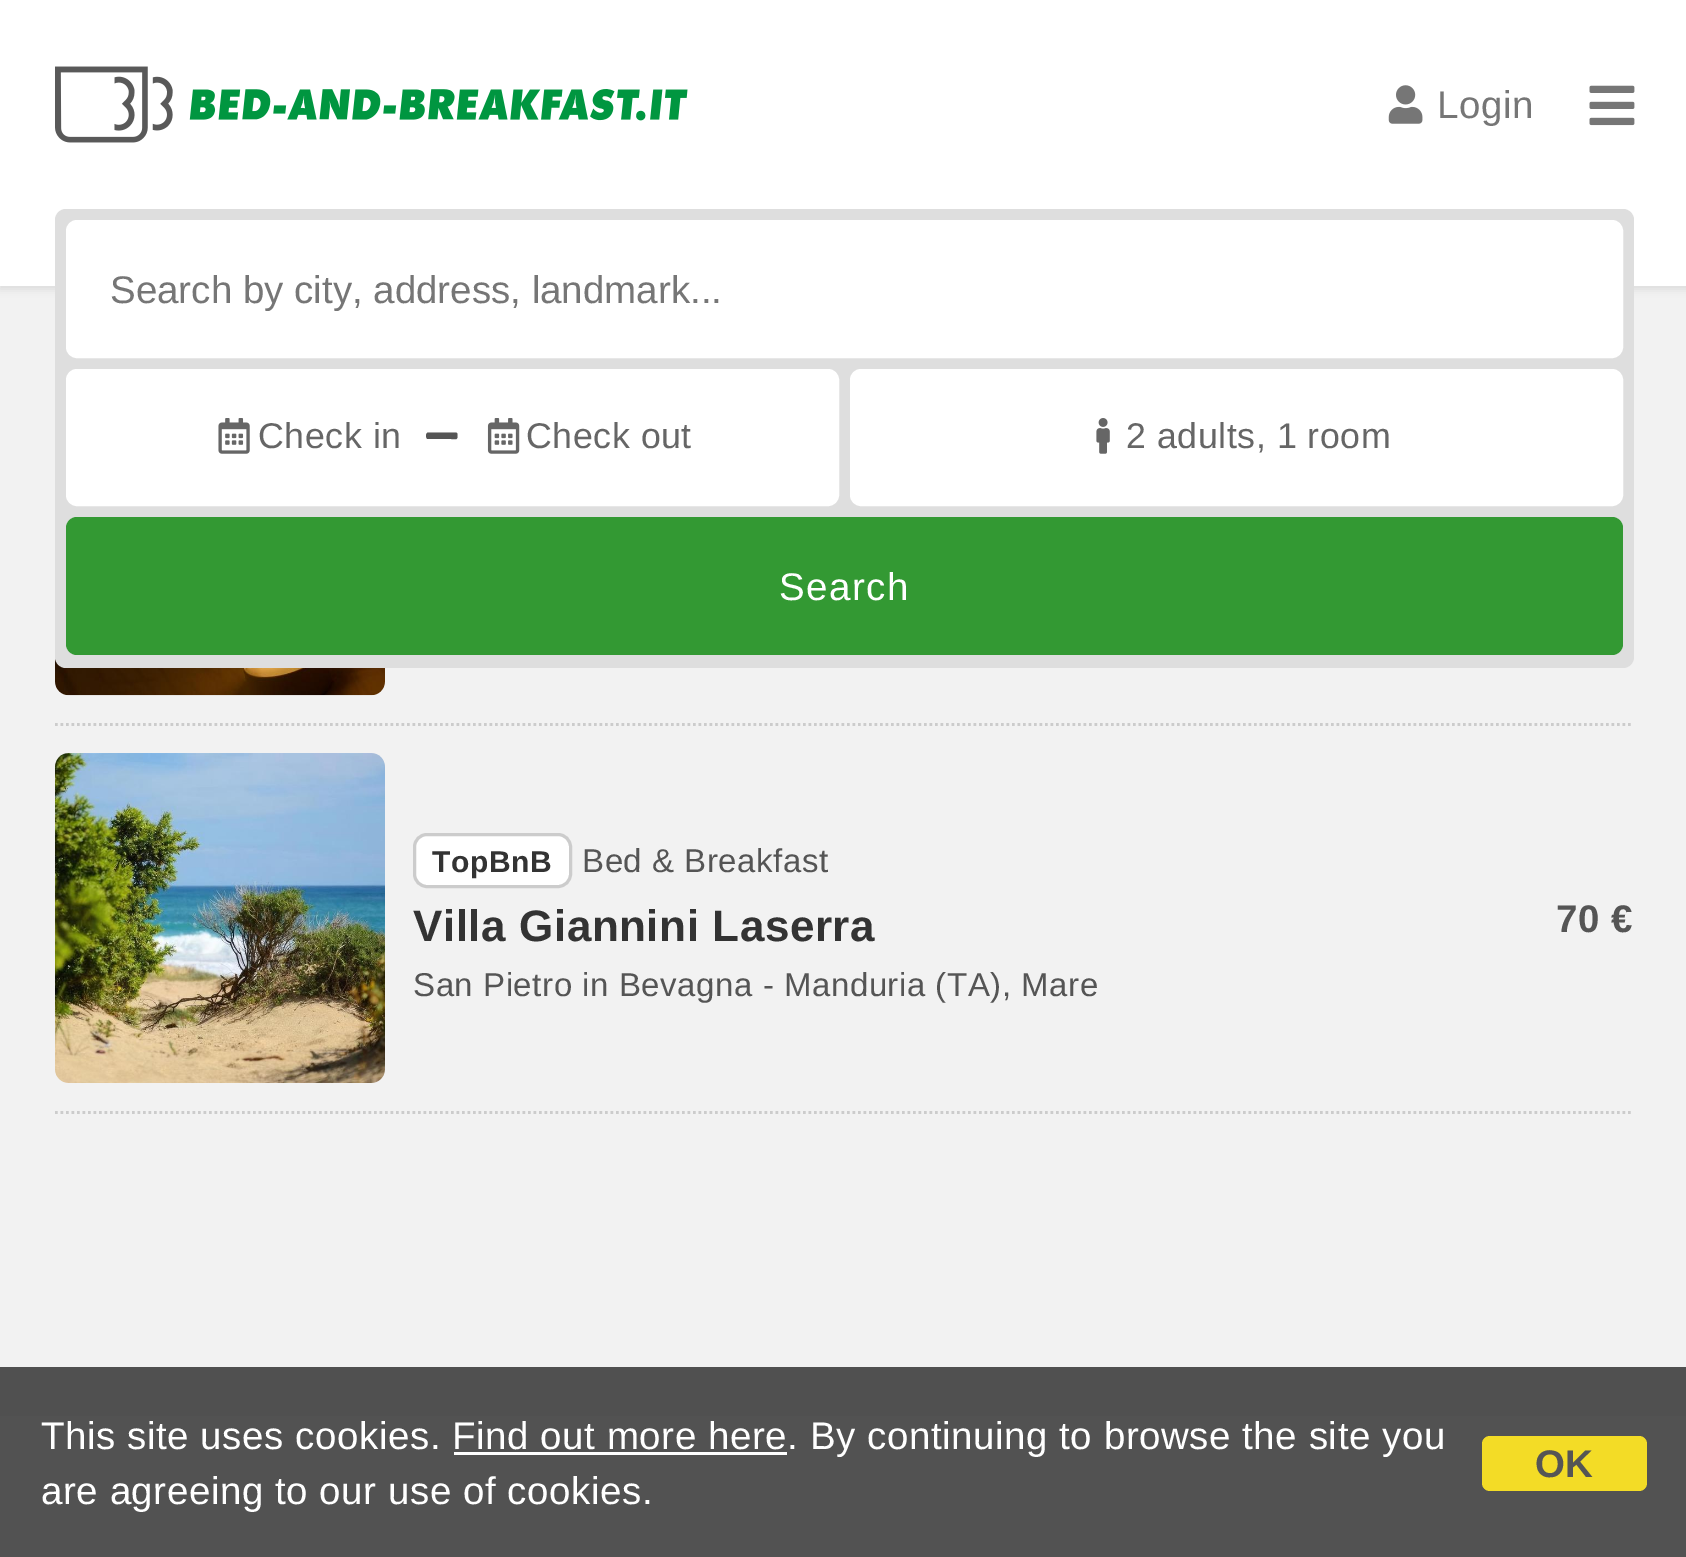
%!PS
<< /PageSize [1686 1557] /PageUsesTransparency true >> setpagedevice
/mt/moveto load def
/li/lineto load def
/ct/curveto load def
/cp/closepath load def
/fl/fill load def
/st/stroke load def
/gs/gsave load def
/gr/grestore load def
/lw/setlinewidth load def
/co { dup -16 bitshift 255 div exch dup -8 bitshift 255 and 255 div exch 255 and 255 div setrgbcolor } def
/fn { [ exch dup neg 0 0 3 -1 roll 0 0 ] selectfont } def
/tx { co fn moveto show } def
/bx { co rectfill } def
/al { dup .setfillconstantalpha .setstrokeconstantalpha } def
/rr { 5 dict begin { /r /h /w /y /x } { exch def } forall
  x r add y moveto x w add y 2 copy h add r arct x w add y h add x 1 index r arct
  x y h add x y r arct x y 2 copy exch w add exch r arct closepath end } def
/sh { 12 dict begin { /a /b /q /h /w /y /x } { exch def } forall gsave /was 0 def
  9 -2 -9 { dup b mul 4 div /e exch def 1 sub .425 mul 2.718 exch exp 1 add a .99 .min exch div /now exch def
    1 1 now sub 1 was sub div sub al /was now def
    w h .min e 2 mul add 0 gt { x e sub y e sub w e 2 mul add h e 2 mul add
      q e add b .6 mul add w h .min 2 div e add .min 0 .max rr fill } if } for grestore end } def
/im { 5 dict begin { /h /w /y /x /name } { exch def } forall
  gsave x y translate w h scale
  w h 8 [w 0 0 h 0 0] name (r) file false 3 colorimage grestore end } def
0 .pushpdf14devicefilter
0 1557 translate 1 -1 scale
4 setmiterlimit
0 0 1686 1557 16#F2F2F2 bx
0 1367 1686 49 16#505050 bx
16#000000 co
0 3 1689 286 0 4 .1 sh
0 0 1686 286 16#FFFFFF bx
(media/1.raw) 55 66 633 77 im
(media/2.raw) 1388 85 35 39 im
(media/3.raw) 1589 85 46 41 im
(media/7.raw) 55 657 330 39 im
16#DEDEDE co
55 209 1579 459 11 rr fl
16#FFFFFF co
67.5 221.5 1554 135 9.5 rr gs fl gr
3 lw
st
67.5 370.5 770 134 9.5 rr gs fl gr
st
(media/4.raw) 218 418 32 36 im
16#555555 co
455.5 432.5 mt 428 432.5 li 425.5 433 425.5 438 427.5 439 ct 451 439 li 455 439 457.5 440.5 457.5 436 ct 457.5 434.5 457.5 432.5 455.5 432.5 ct cp fl
(media/5.raw) 487 418 33 36 im
16#FFFFFF co
851.5 370.5 770 134 9.5 rr gs fl gr
st
(media/6.raw) 1096 418 14 36 im
16#339933 co
66 517 1557 138 11 rr fl
16#CCCCCC co
2.8 lw
[2.75 2.75] 0 setdash
55 724.5 mt 1633.5 724.5 li st
55 1112.5 mt 1633.5 1112.5 li st
(media/8.raw) 55 753 330 330 im
16#FFFFFF co
414.5 834.5 156 52 12.5 rr gs fl gr
16#CCCCCC co
3 lw
[] 0 setdash
st
0 1416 1686 141 16#525252 bx
454 1452 333 3 16#FFFFFF bx
16#F3DC26 co
1482 1436 165 55 8 rr fl
/LiberationSans-Regular 38.5 fn
16#767676 co
1437 118 mt .55 0 (Login) ashow
(Search by city, address, landmark...) 110 303 /LiberationSans-Regular 38.5 16#767676 tx
/LiberationSans-Regular 35.75 fn
16#666666 co
258 448 mt .55 0 (Check in) ashow
526 448 mt .55 0 (Check out) ashow
1126 448 mt .55 0 (2 adults, 1 room) ashow
/LiberationSans-Regular 38.5 fn
16#FFFFFF co
779 600 mt 1.5 0 (Search) ashow
/LiberationSans-Bold 30 fn
16#333333 co
432 872 mt .55 0 (TopBnB) ashow
/LiberationSans-Regular 33 fn
16#555555 co
582 872 mt .55 0 (Bed & Breakfast) ashow
/LiberationSans-Bold 44 fn
16#333333 co
413 941 mt .55 0 (Villa Giannini Laserra) ashow
/LiberationSans-Regular 33 fn
16#555555 co
413 996 mt .55 0 (San Pietro in Bevagna - Manduria \(TA\), Mare) ashow
/LiberationSans-Bold 38.5 fn
1556 932 mt .55 0 (70 €) ashow
/LiberationSans-Regular 38.5 fn
16#FFFFFF co
41 1449 mt .55 0 (This site uses cookies. Find out more here. By continuing to browse the site you) ashow
41 1504 mt .55 0 (are agreeing to our use of cookies.) ashow
/LiberationSans-Bold 38.5 fn
16#555555 co
1535 1477 mt .55 0 (OK) ashow
.poppdf14devicefilter showpage
